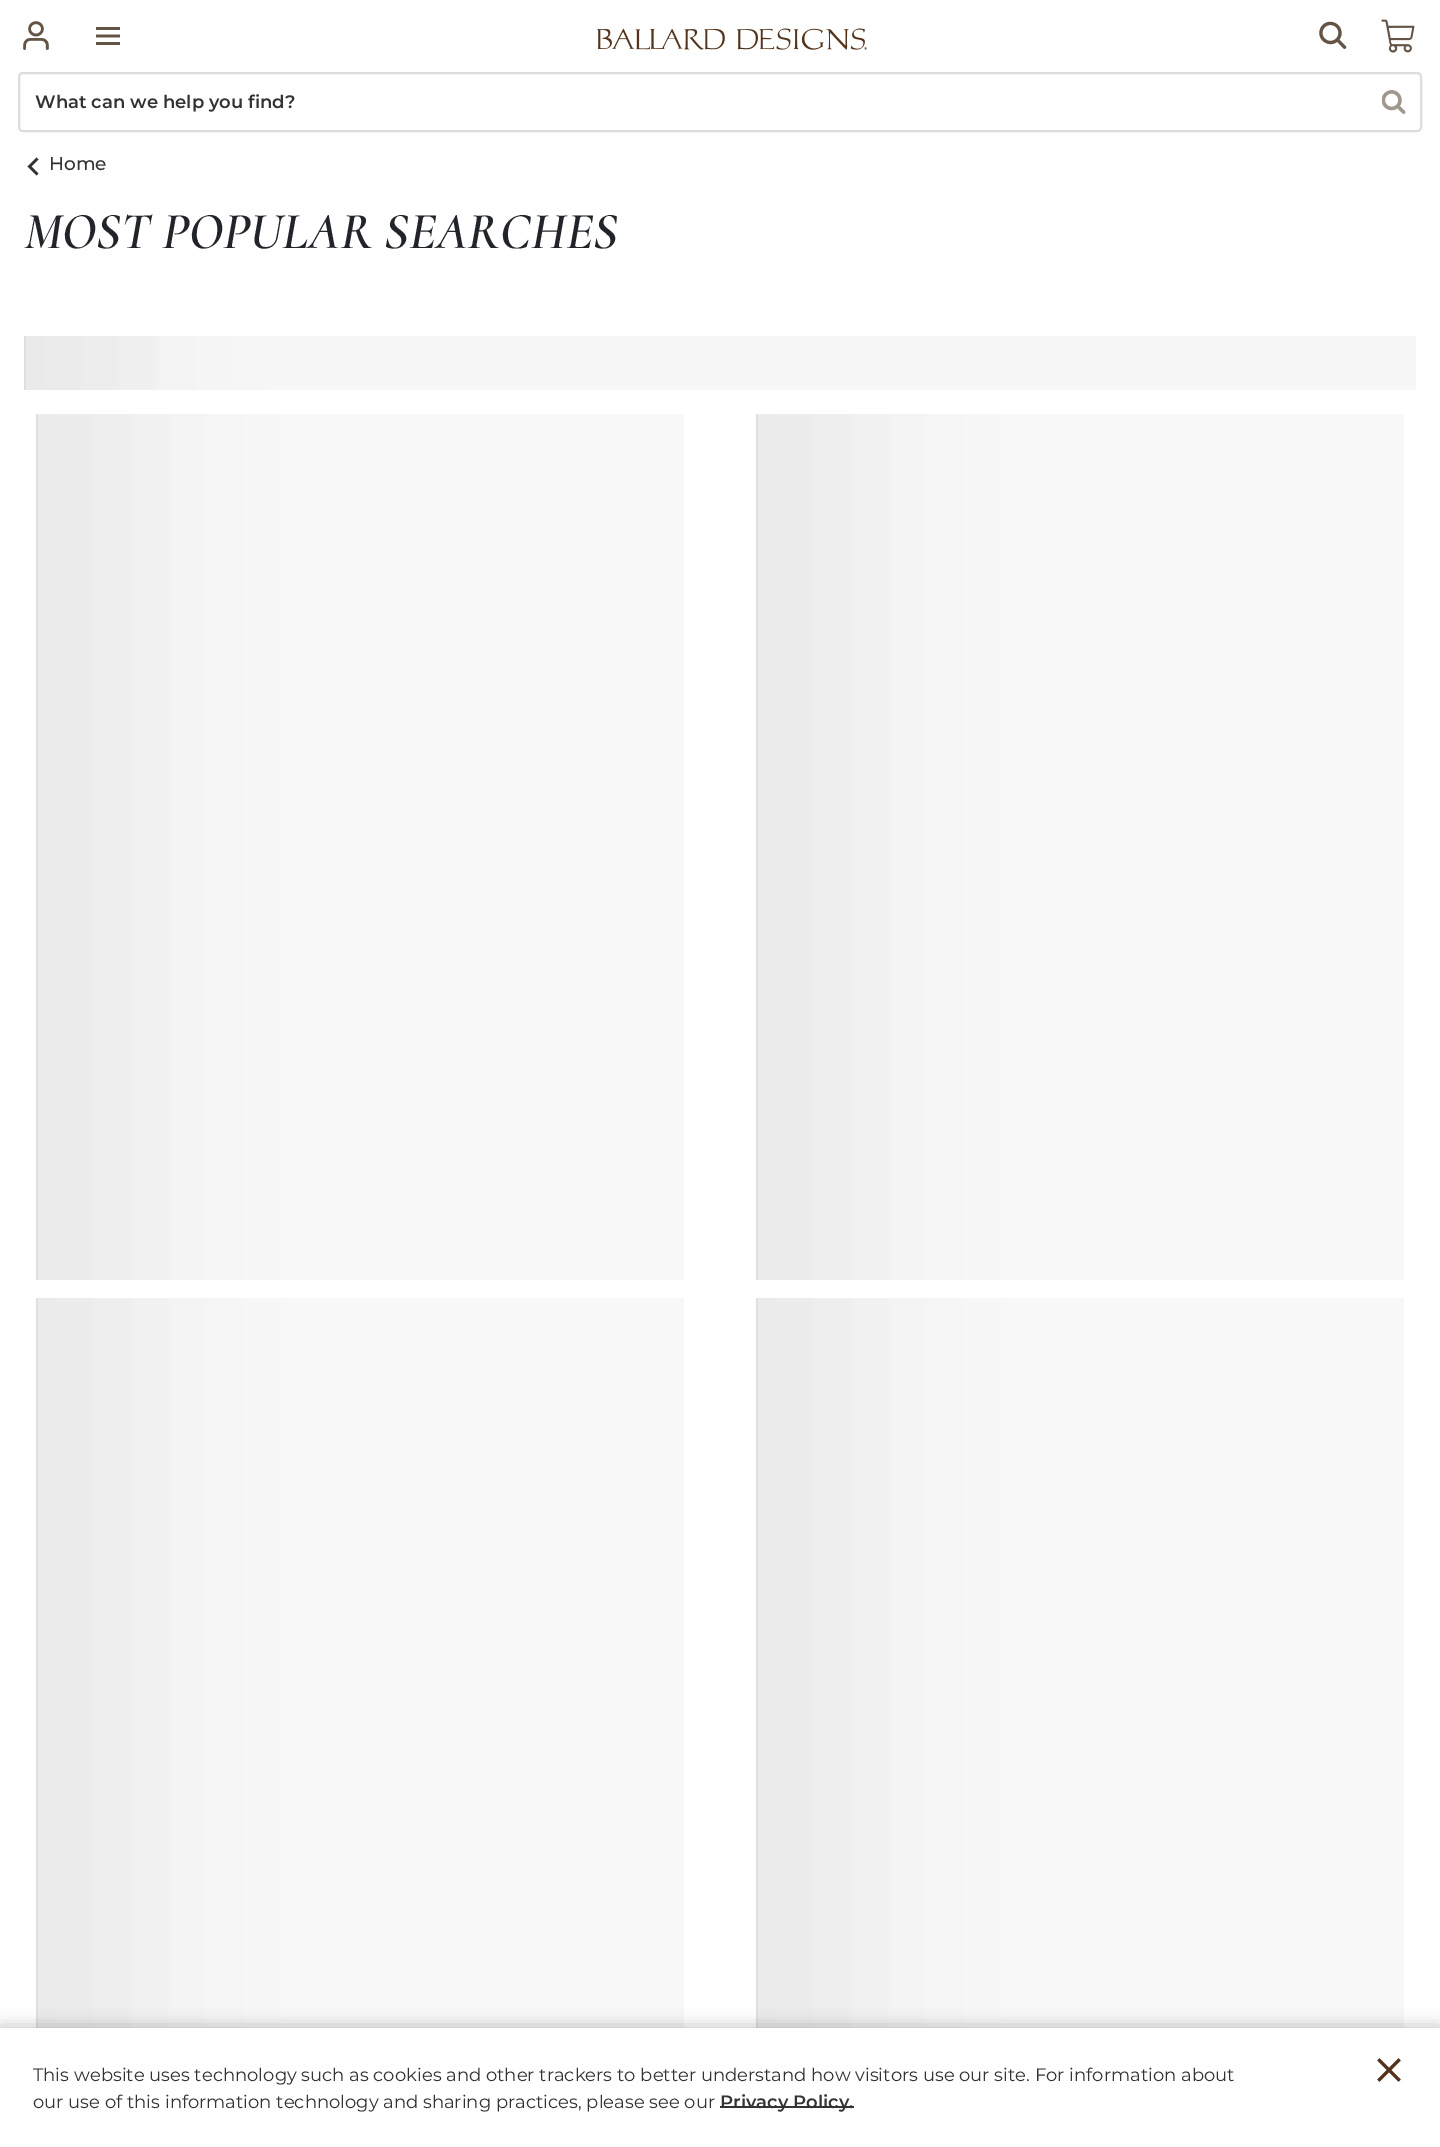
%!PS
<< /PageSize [1440 2147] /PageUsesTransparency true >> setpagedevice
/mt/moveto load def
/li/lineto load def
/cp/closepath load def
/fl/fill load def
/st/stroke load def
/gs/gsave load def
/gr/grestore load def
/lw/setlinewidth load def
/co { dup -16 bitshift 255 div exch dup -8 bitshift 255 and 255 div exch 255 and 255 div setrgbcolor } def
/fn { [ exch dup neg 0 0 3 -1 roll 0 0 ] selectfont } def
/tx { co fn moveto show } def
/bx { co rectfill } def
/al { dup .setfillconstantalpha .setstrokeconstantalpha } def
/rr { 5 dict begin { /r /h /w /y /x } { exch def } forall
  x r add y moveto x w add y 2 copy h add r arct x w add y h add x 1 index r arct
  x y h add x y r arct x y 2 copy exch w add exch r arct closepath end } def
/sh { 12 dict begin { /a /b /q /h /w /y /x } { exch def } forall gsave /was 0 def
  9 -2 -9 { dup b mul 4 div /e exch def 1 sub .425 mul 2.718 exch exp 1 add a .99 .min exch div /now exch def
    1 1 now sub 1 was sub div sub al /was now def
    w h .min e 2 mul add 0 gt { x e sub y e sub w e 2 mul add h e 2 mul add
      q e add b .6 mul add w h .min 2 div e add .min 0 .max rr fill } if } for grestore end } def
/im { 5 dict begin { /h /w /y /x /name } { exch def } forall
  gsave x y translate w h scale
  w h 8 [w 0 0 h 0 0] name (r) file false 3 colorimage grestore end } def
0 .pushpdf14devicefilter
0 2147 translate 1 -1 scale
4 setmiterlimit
0 0 1440 2147 16#FFFFFF bx
24 336 1392 54 16#F7F7F7 bx
gs
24 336 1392 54 rectclip
16#000000 co
-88 224 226 279 0 75 .05 sh
gr
(media/1.raw) 23 21 26 29 im
(media/2.raw) 597 28 270 22 im
(media/3.raw) 1381 19 34 34 im
(media/4.raw) 96 27 24 18 im
(media/5.raw) 1319 21 28 28 im
0.05 al
24 336 2 54 16#000000 bx
1 al
36 414 648 866 16#F8F8F8 bx
gs
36 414 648 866 rectclip
16#000000 co
-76 302 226 1090 0 75 .05 sh
gr
756 414 648 866 16#F8F8F8 bx
gs
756 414 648 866 rectclip
16#000000 co
644 302 226 1090 0 75 .05 sh
gr
16#DDDDDD co
2 lw
19 73 1402 58 4 rr st
(media/6.raw) 1382 90 24 24 im
16#333333 co
38.5 159.5 mt 31.5 166.5 li 38.5 173.5 li 36.5 175.5 li 27.5 166.5 li 36.5 157.5 li cp fl
0.05 al
36 414 2 866 16#000000 bx
756 414 2 866 16#000000 bx
1 al
36 1298 648 730 16#F8F8F8 bx
gs
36 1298 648 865 rectclip
16#000000 co
-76 1185 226 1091 0 75 .05 sh
gr
0.05 al
36 1298 2 730 16#000000 bx
1 al
756 1298 648 730 16#F8F8F8 bx
gs
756 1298 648 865 rectclip
16#000000 co
644 1185 226 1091 0 75 .05 sh
gr
0.05 al
756 1298 2 730 16#000000 bx
1 al
0 2025 1440 120 0 7.5 .2 sh
0 2028 1440 119 16#FFFFFF bx
720 2106 134 2 16#333333 bx
(media/7.raw) 1377 2058 24 24 im
(What can we help you find?) 35 108 /Montserrat-SemiBold 18 16#333333 tx
(Home) 49 170 /Montserrat-Medium 18.5 16#333333 tx
(MOST POPULAR SEARCHES) 24 248 /Cormorant-SemiBoldItalic 52 16#212529 tx
(This website uses technology such as cookies and other trackers to better understand how visitors use our site. For information about) 33 2081 /Montserrat-Regular 18 16#333333 tx
(our use of this information technology and sharing practices, please see our) 33 2108 /Montserrat-Regular 18 16#333333 tx
(Privacy Policy.) 720 2108 /Montserrat-SemiBold 18 16#333333 tx
.poppdf14devicefilter showpage
